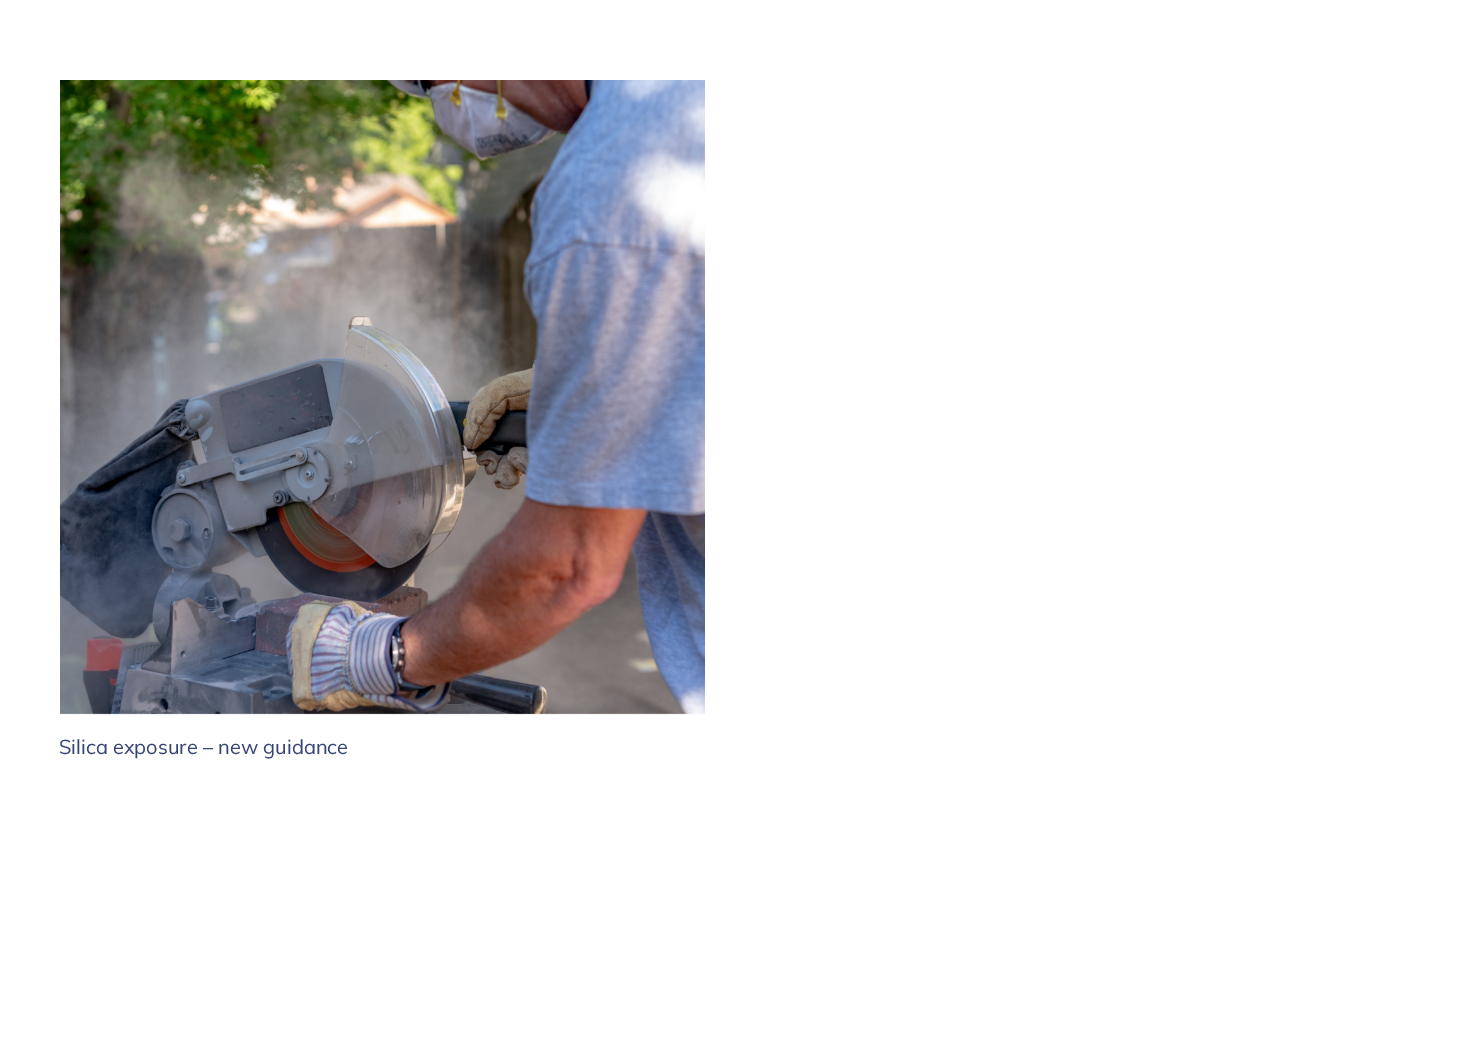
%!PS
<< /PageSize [1468 1059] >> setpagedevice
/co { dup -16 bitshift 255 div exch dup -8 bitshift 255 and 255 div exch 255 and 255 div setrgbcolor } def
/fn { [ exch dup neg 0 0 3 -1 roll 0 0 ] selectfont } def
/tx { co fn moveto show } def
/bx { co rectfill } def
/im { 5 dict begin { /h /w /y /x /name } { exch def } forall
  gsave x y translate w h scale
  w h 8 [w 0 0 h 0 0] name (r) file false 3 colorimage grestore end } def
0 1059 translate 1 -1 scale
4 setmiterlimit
0 0 1468 1059 16#FFFFFF bx
(media/1.raw) 60 80 645 635 im
(Silica exposure – new guidance) 59 754 /Muli-Regular 20 16#374572 tx
showpage
